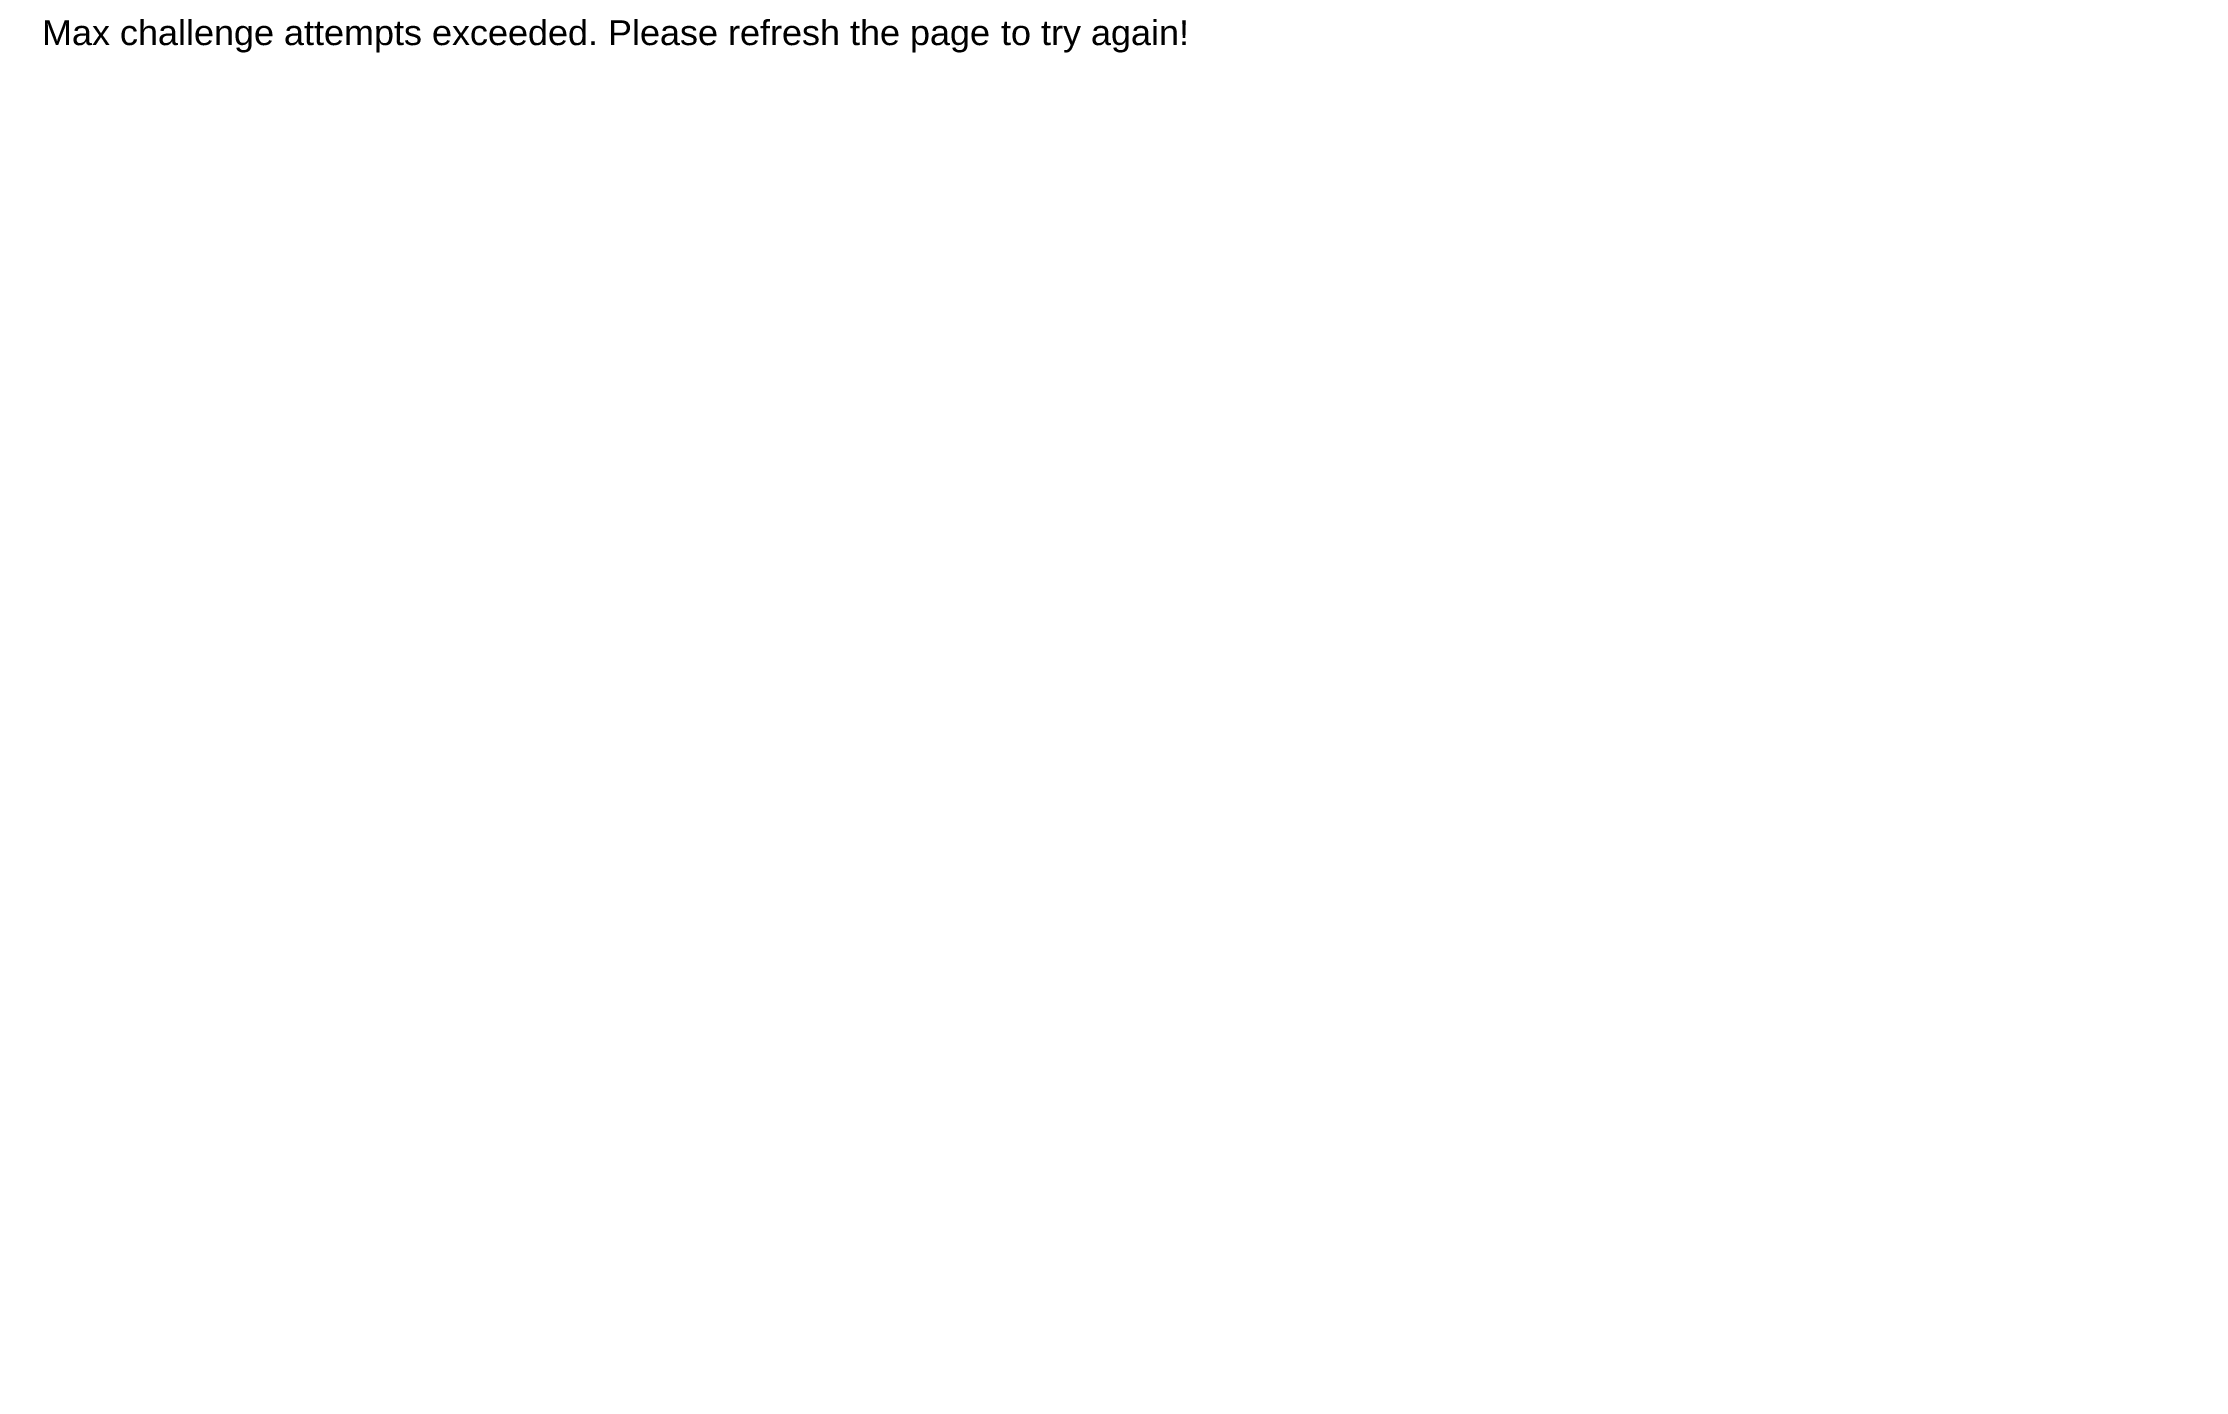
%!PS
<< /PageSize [2228 1414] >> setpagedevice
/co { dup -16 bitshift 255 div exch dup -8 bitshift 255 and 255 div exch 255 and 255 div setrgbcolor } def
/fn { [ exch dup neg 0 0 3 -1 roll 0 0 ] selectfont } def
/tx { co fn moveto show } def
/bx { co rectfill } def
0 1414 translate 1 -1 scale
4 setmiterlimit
0 0 2228 1414 16#FFFFFF bx
(Max challenge attempts exceeded. Please refresh the page to try again!) 42 45 /LiberationSans-Regular 36 16#000000 tx
showpage
